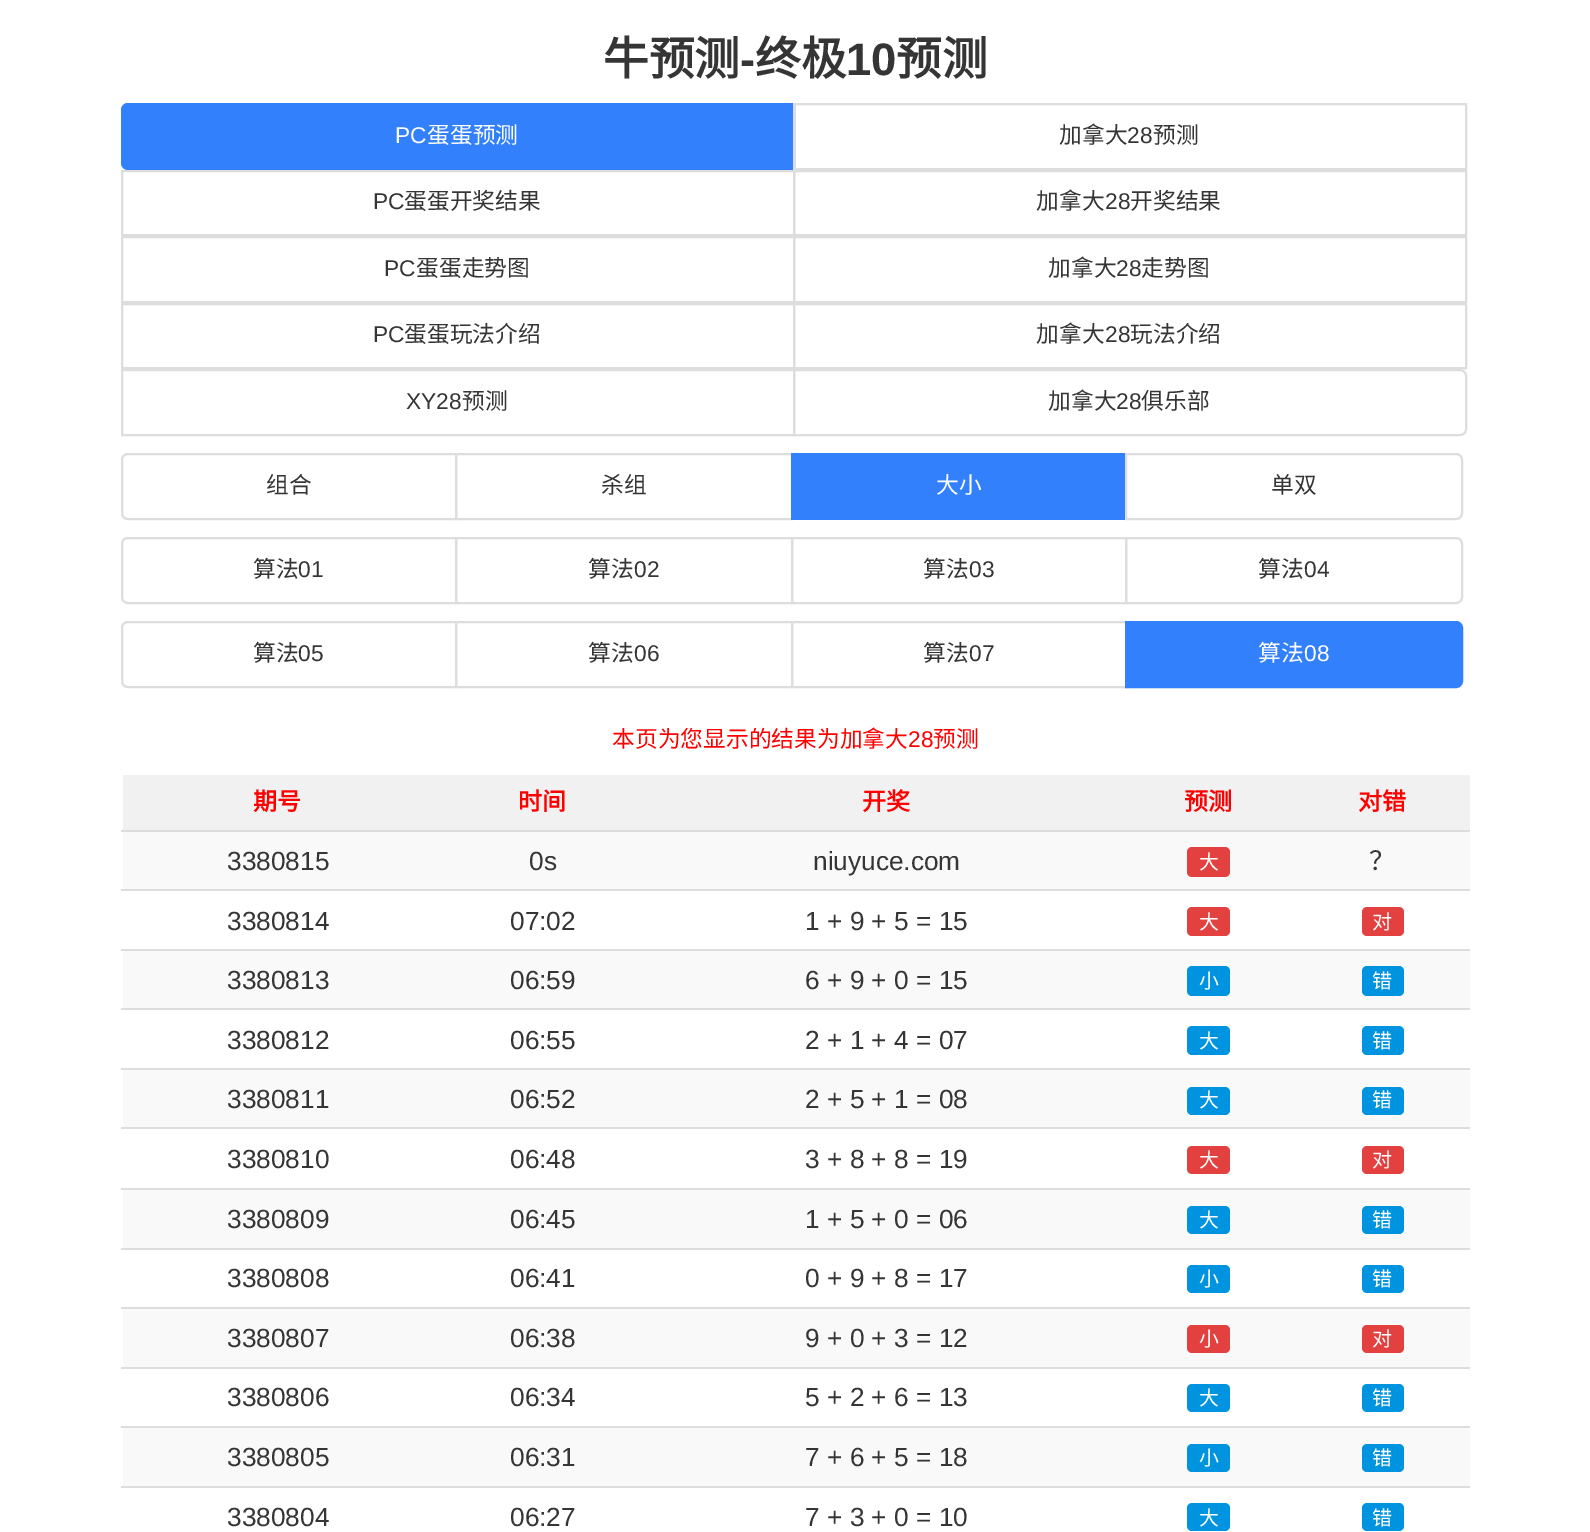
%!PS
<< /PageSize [1590 1532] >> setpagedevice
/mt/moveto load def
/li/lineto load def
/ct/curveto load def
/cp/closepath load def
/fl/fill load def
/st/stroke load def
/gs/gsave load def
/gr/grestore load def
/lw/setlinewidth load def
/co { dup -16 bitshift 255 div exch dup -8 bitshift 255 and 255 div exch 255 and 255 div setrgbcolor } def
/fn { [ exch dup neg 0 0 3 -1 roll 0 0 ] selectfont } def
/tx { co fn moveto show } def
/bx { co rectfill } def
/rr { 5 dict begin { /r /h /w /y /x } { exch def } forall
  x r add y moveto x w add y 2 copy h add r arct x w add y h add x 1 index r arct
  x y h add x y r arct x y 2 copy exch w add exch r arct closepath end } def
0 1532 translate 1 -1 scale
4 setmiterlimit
0 0 1590 1532 16#FFFFFF bx
16#3280FC co
128 104 mt 794 104 li 794 169 li 128 169 li 124.5 169 122 166.5 122 163 ct 122 110 li 122 106.5 124.5 104 128 104 ct cp gs fl gr
2 lw
st
16#DDDDDD co
794 104 672 65 rectstroke
122 171 672 64 rectstroke
794 171 672 64 rectstroke
122 237 672 65 rectstroke
794 237 672 65 rectstroke
122 304 672 64 rectstroke
794 304 672 64 rectstroke
122 370 672 65 rectstroke
794 370 mt 1460 370 li 1463.5 370 1466 372.5 1466 376 ct 1466 429 li 1466 432.5 1463.5 435 1460 435 ct 794 435 li cp st
128 454 mt 456 454 li 456 519 li 128 519 li 124.5 519 122 516.5 122 513 ct 122 460 li 122 456.5 124.5 454 128 454 ct cp st
456 454 336 65 rectstroke
791 453 334 67 16#3280FC bx
16#DDDDDD co
1126 454 mt 1456 454 li 1459.5 454 1462 456.5 1462 460 ct 1462 513 li 1462 516.5 1459.5 519 1456 519 ct 1126 519 li cp st
128 538 mt 456 538 li 456 603 li 128 603 li 124.5 603 122 600.5 122 597 ct 122 544 li 122 540.5 124.5 538 128 538 ct cp st
456 538 336 65 rectstroke
792 538 334 65 rectstroke
1126 538 mt 1456 538 li 1459.5 538 1462 540.5 1462 544 ct 1462 597 li 1462 600.5 1459.5 603 1456 603 ct 1126 603 li cp st
128 622 mt 456 622 li 456 687 li 128 687 li 124.5 687 122 684.5 122 681 ct 122 628 li 122 624.5 124.5 622 128 622 ct cp st
456 622 336 65 rectstroke
792 622 334 65 rectstroke
16#3280FC co
1126 622 mt 1456 622 li 1459.5 622 1462 624.5 1462 628 ct 1462 681 li 1462 684.5 1459.5 687 1456 687 ct 1126 687 li cp gs fl gr
st
123 775 1347 55 16#F1F1F1 bx
121 830 1349 2 16#DDDDDD bx
123 832 1347 57 16#F9F9F9 bx
16#E34040 co
1187 847 43 30 5 rr fl
121 889 1349 2 16#DDDDDD bx
16#E34040 co
1187 907 43 29 5 rr fl
121 949 1349 2 16#DDDDDD bx
16#E34040 co
1362 907 42 29 5 rr fl
123 951 1347 57 16#F9F9F9 bx
16#0094E0 co
1187 966 43 30 5 rr fl
121 1008 1349 2 16#DDDDDD bx
16#0094E0 co
1362 966 42 30 5 rr fl
1187 1026 43 29 5 rr fl
121 1068 1349 2 16#DDDDDD bx
16#0094E0 co
1362 1026 42 29 5 rr fl
123 1070 1347 57 16#F9F9F9 bx
16#0094E0 co
1187 1087 43 28 5 rr fl
121 1127 1349 2 16#DDDDDD bx
16#0094E0 co
1362 1087 42 28 5 rr fl
16#E34040 co
1187 1146 43 28 5 rr fl
121 1188 1349 2 16#DDDDDD bx
16#E34040 co
1362 1146 42 28 5 rr fl
123 1190 1347 58 16#F9F9F9 bx
16#0094E0 co
1187 1206 43 28 5 rr fl
121 1248 1349 2 16#DDDDDD bx
16#0094E0 co
1362 1206 42 28 5 rr fl
1187 1265 43 28 5 rr fl
121 1307 1349 2 16#DDDDDD bx
16#0094E0 co
1362 1265 42 28 5 rr fl
123 1309 1347 58 16#F9F9F9 bx
16#E34040 co
1187 1325 43 28 5 rr fl
121 1367 1349 2 16#DDDDDD bx
16#E34040 co
1362 1325 42 28 5 rr fl
16#0094E0 co
1187 1384 43 28 5 rr fl
121 1426 1349 2 16#DDDDDD bx
16#0094E0 co
1362 1384 42 28 5 rr fl
123 1428 1347 58 16#F9F9F9 bx
16#0094E0 co
1187 1444 43 28 5 rr fl
121 1486 1349 2 16#DDDDDD bx
16#0094E0 co
1362 1444 42 28 5 rr fl
1187 1503 43 28 5 rr fl
1362 1503 42 28 5 rr fl
(牛预测) 603 75 /NotoSansCJKSC-Bold 45.5 16#353535 tx
(-) 740 75 /LiberationSans-Bold 45.5 16#353535 tx
(终极) 755 75 /NotoSansCJKSC-Bold 45.5 16#353535 tx
(10) 846 75 /LiberationSans-Bold 45.5 16#353535 tx
(预测) 896 75 /NotoSansCJKSC-Bold 45.5 16#353535 tx
(PC) 395 143 /LiberationSans-Regular 22.75 16#FFFFFF tx
(蛋蛋预测) 427 143 /NotoSansCJKSC-Regular 22.75 16#FFFFFF tx
(加拿大) 1059 143 /NotoSansCJKSC-Regular 22.75 16#353535 tx
(28) 1127 143 /LiberationSans-Regular 22.75 16#353535 tx
(预测) 1153 143 /NotoSansCJKSC-Regular 22.75 16#353535 tx
(PC) 373 209 /LiberationSans-Regular 22.75 16#353535 tx
(蛋蛋开奖结果) 404 209 /NotoSansCJKSC-Regular 22.75 16#353535 tx
(加拿大) 1036 209 /NotoSansCJKSC-Regular 22.75 16#353535 tx
(28) 1105 209 /LiberationSans-Regular 22.75 16#353535 tx
(开奖结果) 1130 209 /NotoSansCJKSC-Regular 22.75 16#353535 tx
(PC) 384 276 /LiberationSans-Regular 22.75 16#353535 tx
(蛋蛋走势图) 416 276 /NotoSansCJKSC-Regular 22.75 16#353535 tx
(加拿大) 1048 276 /NotoSansCJKSC-Regular 22.75 16#353535 tx
(28) 1116 276 /LiberationSans-Regular 22.75 16#353535 tx
(走势图) 1141 276 /NotoSansCJKSC-Regular 22.75 16#353535 tx
(PC) 373 342 /LiberationSans-Regular 22.75 16#353535 tx
(蛋蛋玩法介绍) 404 342 /NotoSansCJKSC-Regular 22.75 16#353535 tx
(加拿大) 1036 342 /NotoSansCJKSC-Regular 22.75 16#353535 tx
(28) 1105 342 /LiberationSans-Regular 22.75 16#353535 tx
(玩法介绍) 1130 342 /NotoSansCJKSC-Regular 22.75 16#353535 tx
(XY28) 406 409 /LiberationSans-Regular 22.75 16#353535 tx
(预测) 462 409 /NotoSansCJKSC-Regular 22.75 16#353535 tx
(加拿大) 1048 409 /NotoSansCJKSC-Regular 22.75 16#353535 tx
(28) 1116 409 /LiberationSans-Regular 22.75 16#353535 tx
(俱乐部) 1141 409 /NotoSansCJKSC-Regular 22.75 16#353535 tx
(组合) 266 493 /NotoSansCJKSC-Regular 22.75 16#353535 tx
(杀组) 601 493 /NotoSansCJKSC-Regular 22.75 16#353535 tx
(大小) 936 493 /NotoSansCJKSC-Regular 22.75 16#FFFFFF tx
(单双) 1271 493 /NotoSansCJKSC-Regular 22.75 16#353535 tx
(算法) 253 577 /NotoSansCJKSC-Regular 22.75 16#353535 tx
(01) 298 577 /LiberationSans-Regular 22.75 16#353535 tx
(算法) 588 577 /NotoSansCJKSC-Regular 22.75 16#353535 tx
(02) 634 577 /LiberationSans-Regular 22.75 16#353535 tx
(算法) 923 577 /NotoSansCJKSC-Regular 22.75 16#353535 tx
(03) 969 577 /LiberationSans-Regular 22.75 16#353535 tx
(算法) 1258 577 /NotoSansCJKSC-Regular 22.75 16#353535 tx
(04) 1304 577 /LiberationSans-Regular 22.75 16#353535 tx
(算法) 253 661 /NotoSansCJKSC-Regular 22.75 16#353535 tx
(05) 298 661 /LiberationSans-Regular 22.75 16#353535 tx
(算法) 588 661 /NotoSansCJKSC-Regular 22.75 16#353535 tx
(06) 634 661 /LiberationSans-Regular 22.75 16#353535 tx
(算法) 923 661 /NotoSansCJKSC-Regular 22.75 16#353535 tx
(07) 969 661 /LiberationSans-Regular 22.75 16#353535 tx
(算法) 1258 661 /NotoSansCJKSC-Regular 22.75 16#FFFFFF tx
(08) 1304 661 /LiberationSans-Regular 22.75 16#FFFFFF tx
(本页为您显示的结果为加拿大) 612 747 /NotoSansCJKSC-Regular 22.75 16#FF0000 tx
(28) 908 747 /LiberationSans-Regular 22.75 16#FF0000 tx
(预测) 933 747 /NotoSansCJKSC-Regular 22.75 16#FF0000 tx
(期号) 253 810 /NotoSansCJKSC-Bold 24 16#FF0000 tx
(时间) 518 810 /NotoSansCJKSC-Bold 24 16#FF0000 tx
(开奖) 862 810 /NotoSansCJKSC-Bold 24 16#FF0000 tx
(预测) 1184 810 /NotoSansCJKSC-Bold 24 16#FF0000 tx
(对错) 1358 810 /NotoSansCJKSC-Bold 24 16#FF0000 tx
(3380815) 227 870 /LiberationSans-Regular 26.25 16#353535 tx
(0s) 529 870 /LiberationSans-Regular 26.25 16#353535 tx
(niuyuce.com) 813 870 /LiberationSans-Regular 26.25 16#353535 tx
(大) 1199 869 /NotoSansCJKSC-Regular 20 16#FFFFFF tx
(？) 1369 870 /NotoSansCJKSC-Regular 26.25 16#353535 tx
(3380814) 227 930 /LiberationSans-Regular 26.25 16#353535 tx
(07:02) 510 930 /LiberationSans-Regular 26.25 16#353535 tx
(1 + 9 + 5 = 15) 805 930 /LiberationSans-Regular 26.25 16#353535 tx
(大) 1199 929 /NotoSansCJKSC-Regular 20 16#FFFFFF tx
(对) 1372 929 /NotoSansCJKSC-Regular 20 16#FFFFFF tx
(3380813) 227 989 /LiberationSans-Regular 26.25 16#353535 tx
(06:59) 510 989 /LiberationSans-Regular 26.25 16#353535 tx
(6 + 9 + 0 = 15) 805 989 /LiberationSans-Regular 26.25 16#353535 tx
(小) 1199 988 /NotoSansCJKSC-Regular 20 16#FFFFFF tx
(错) 1372 988 /NotoSansCJKSC-Regular 20 16#FFFFFF tx
(3380812) 227 1049 /LiberationSans-Regular 26.25 16#353535 tx
(06:55) 510 1049 /LiberationSans-Regular 26.25 16#353535 tx
(2 + 1 + 4 = 07) 805 1049 /LiberationSans-Regular 26.25 16#353535 tx
(大) 1199 1048 /NotoSansCJKSC-Regular 20 16#FFFFFF tx
(错) 1372 1048 /NotoSansCJKSC-Regular 20 16#FFFFFF tx
(3380811) 227 1108 /LiberationSans-Regular 26.25 16#353535 tx
(06:52) 510 1108 /LiberationSans-Regular 26.25 16#353535 tx
(2 + 5 + 1 = 08) 805 1108 /LiberationSans-Regular 26.25 16#353535 tx
(大) 1199 1107 /NotoSansCJKSC-Regular 20 16#FFFFFF tx
(错) 1372 1107 /NotoSansCJKSC-Regular 20 16#FFFFFF tx
(3380810) 227 1168 /LiberationSans-Regular 26.25 16#353535 tx
(06:48) 510 1168 /LiberationSans-Regular 26.25 16#353535 tx
(3 + 8 + 8 = 19) 805 1168 /LiberationSans-Regular 26.25 16#353535 tx
(大) 1199 1167 /NotoSansCJKSC-Regular 20 16#FFFFFF tx
(对) 1372 1167 /NotoSansCJKSC-Regular 20 16#FFFFFF tx
(3380809) 227 1228 /LiberationSans-Regular 26.25 16#353535 tx
(06:45) 510 1228 /LiberationSans-Regular 26.25 16#353535 tx
(1 + 5 + 0 = 06) 805 1228 /LiberationSans-Regular 26.25 16#353535 tx
(大) 1199 1227 /NotoSansCJKSC-Regular 20 16#FFFFFF tx
(错) 1372 1227 /NotoSansCJKSC-Regular 20 16#FFFFFF tx
(3380808) 227 1287 /LiberationSans-Regular 26.25 16#353535 tx
(06:41) 510 1287 /LiberationSans-Regular 26.25 16#353535 tx
(0 + 9 + 8 = 17) 805 1287 /LiberationSans-Regular 26.25 16#353535 tx
(小) 1199 1286 /NotoSansCJKSC-Regular 20 16#FFFFFF tx
(错) 1372 1286 /NotoSansCJKSC-Regular 20 16#FFFFFF tx
(3380807) 227 1347 /LiberationSans-Regular 26.25 16#353535 tx
(06:38) 510 1347 /LiberationSans-Regular 26.25 16#353535 tx
(9 + 0 + 3 = 12) 805 1347 /LiberationSans-Regular 26.25 16#353535 tx
(小) 1199 1346 /NotoSansCJKSC-Regular 20 16#FFFFFF tx
(对) 1372 1346 /NotoSansCJKSC-Regular 20 16#FFFFFF tx
(3380806) 227 1406 /LiberationSans-Regular 26.25 16#353535 tx
(06:34) 510 1406 /LiberationSans-Regular 26.25 16#353535 tx
(5 + 2 + 6 = 13) 805 1406 /LiberationSans-Regular 26.25 16#353535 tx
(大) 1199 1405 /NotoSansCJKSC-Regular 20 16#FFFFFF tx
(错) 1372 1405 /NotoSansCJKSC-Regular 20 16#FFFFFF tx
(3380805) 227 1466 /LiberationSans-Regular 26.25 16#353535 tx
(06:31) 510 1466 /LiberationSans-Regular 26.25 16#353535 tx
(7 + 6 + 5 = 18) 805 1466 /LiberationSans-Regular 26.25 16#353535 tx
(小) 1199 1465 /NotoSansCJKSC-Regular 20 16#FFFFFF tx
(错) 1372 1465 /NotoSansCJKSC-Regular 20 16#FFFFFF tx
(3380804) 227 1526 /LiberationSans-Regular 26.25 16#353535 tx
(06:27) 510 1526 /LiberationSans-Regular 26.25 16#353535 tx
(7 + 3 + 0 = 10) 805 1526 /LiberationSans-Regular 26.25 16#353535 tx
(大) 1199 1525 /NotoSansCJKSC-Regular 20 16#FFFFFF tx
(错) 1372 1525 /NotoSansCJKSC-Regular 20 16#FFFFFF tx
showpage
